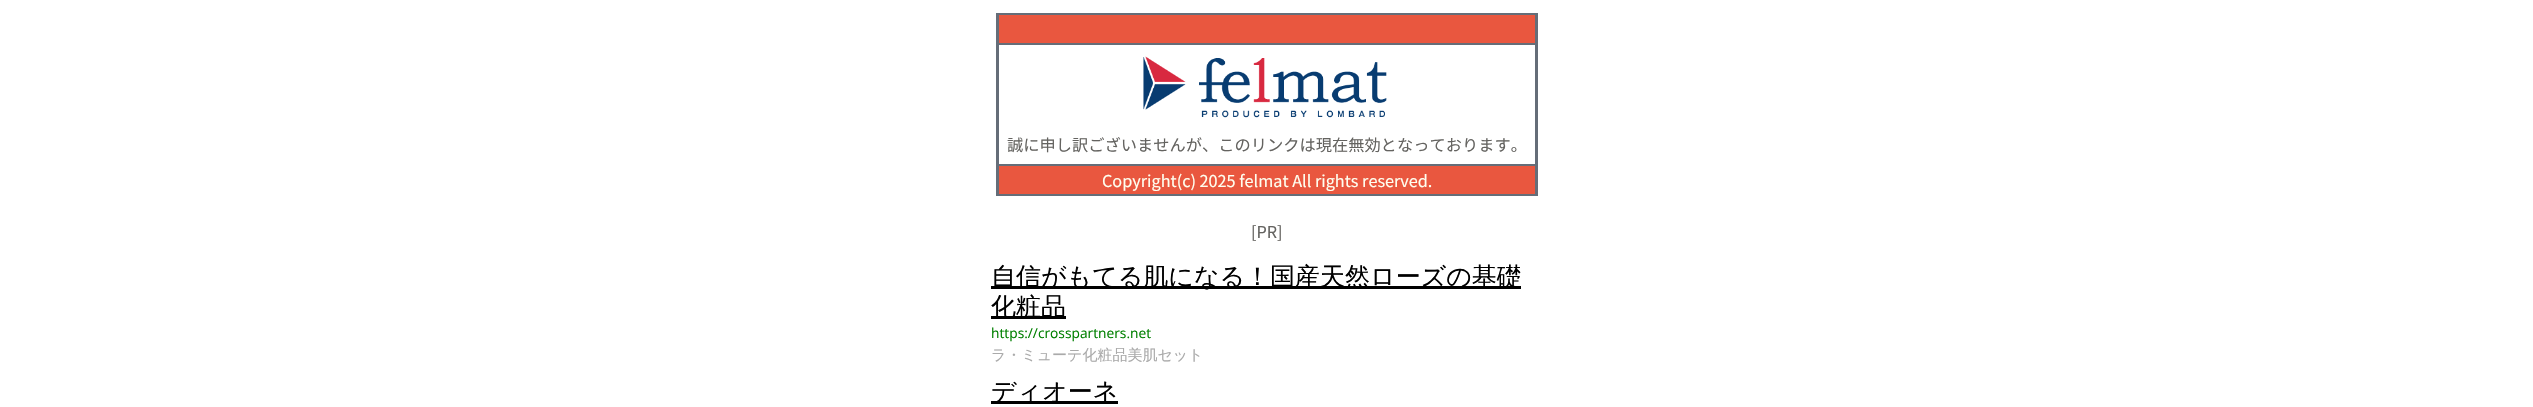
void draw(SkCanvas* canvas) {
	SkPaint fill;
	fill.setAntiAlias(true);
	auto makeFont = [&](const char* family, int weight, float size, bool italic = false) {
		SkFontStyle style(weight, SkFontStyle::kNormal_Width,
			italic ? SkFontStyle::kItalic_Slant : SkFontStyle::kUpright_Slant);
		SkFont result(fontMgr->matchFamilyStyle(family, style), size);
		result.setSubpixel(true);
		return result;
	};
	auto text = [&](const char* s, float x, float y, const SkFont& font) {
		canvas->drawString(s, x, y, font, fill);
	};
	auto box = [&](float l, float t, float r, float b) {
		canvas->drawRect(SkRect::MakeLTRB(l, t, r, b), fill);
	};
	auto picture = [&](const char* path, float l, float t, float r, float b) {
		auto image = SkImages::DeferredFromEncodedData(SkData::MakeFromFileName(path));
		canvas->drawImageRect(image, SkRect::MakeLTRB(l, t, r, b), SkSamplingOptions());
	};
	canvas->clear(0xFFFFFFFF);
	fill.setColor(0xFF656D78);
	box(996, 13, 1538, 196);
	fill.setColor(0xFFE9573F);
	box(999, 15, 1535, 43);
	fill.setColor(0xFFFFFFFF);
	box(999, 45, 1535, 164);
	picture("image0.png", 1143, 56, 1387, 118);
	fill.setColor(0xFFE9573F);
	box(999, 166, 1535, 194);
	fill.setColor(0xFF000000);
	box(991, 286, 1521, 289);
	box(991, 316, 1066, 319);
	box(991, 401, 1118, 404);
	auto font1 = makeFont("Noto Sans JP", 400, 16.25f);
	fill.setColor(0xFF646360);
	text("誠に申し訳ございませんが、このリンクは現在無効となっております。", 1007, 151, font1);
	fill.setColor(0xFFFFFFF0);
	text("Copyright(c) 2025 felmat All rights reserved.", 1102, 187, font1);
	fill.setColor(0xFF646360);
	text("[PR]", 1251, 238, font1);
	auto font2 = makeFont("WenQuanYi Zen Hei", 500, 25);
	fill.setColor(0xFF000000);
	text("自信がもてる肌になる！国産天然ローズの基礎", 991, 285, font2);
	text("化粧品", 991, 315, font2);
	auto font3 = makeFont("Open Sans", 400, 13.75f);
	fill.setColor(0xFF008000);
	text("https://crosspartners.net", 991, 338, font3);
	auto font4 = makeFont("WenQuanYi Zen Hei", 500, 15);
	fill.setColor(0xFFAAAAAA);
	text("ラ・ミューテ化粧品美肌セット", 991, 360, font4);
	fill.setColor(0xFF000000);
	text("ディオーネ", 991, 400, font2);
}
